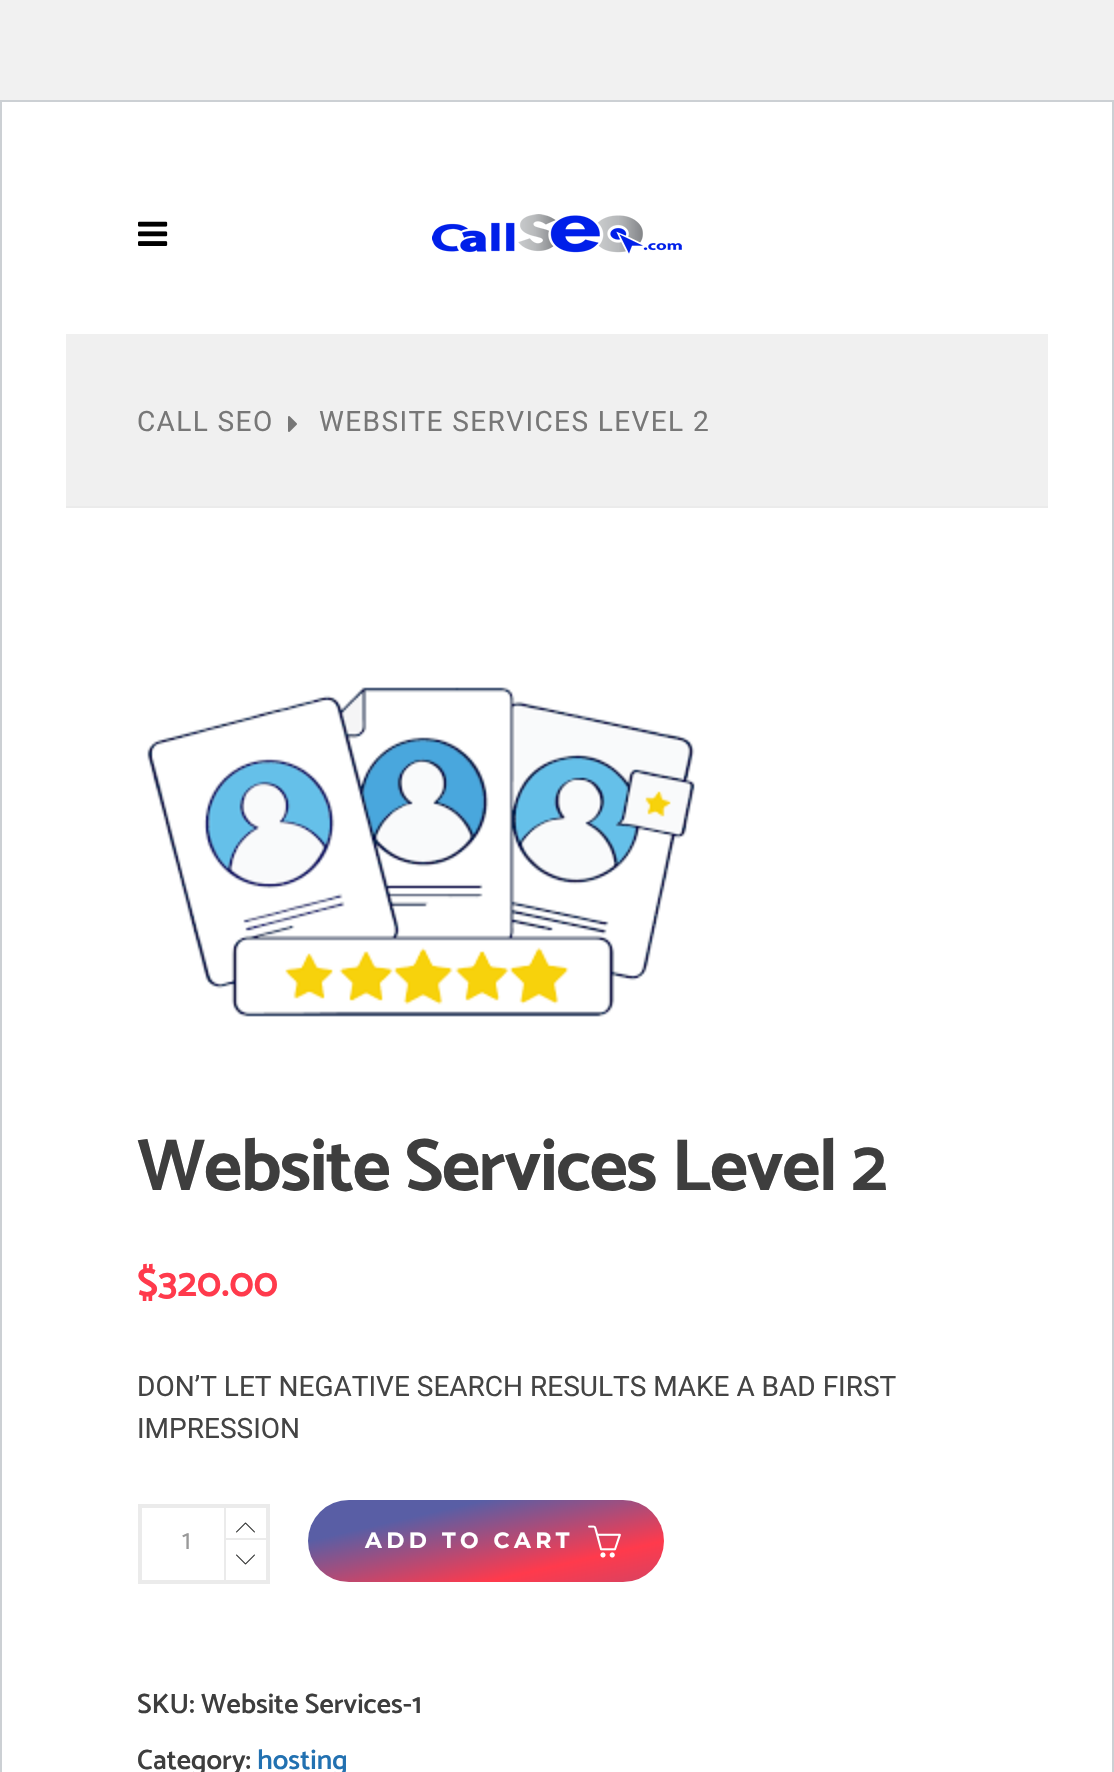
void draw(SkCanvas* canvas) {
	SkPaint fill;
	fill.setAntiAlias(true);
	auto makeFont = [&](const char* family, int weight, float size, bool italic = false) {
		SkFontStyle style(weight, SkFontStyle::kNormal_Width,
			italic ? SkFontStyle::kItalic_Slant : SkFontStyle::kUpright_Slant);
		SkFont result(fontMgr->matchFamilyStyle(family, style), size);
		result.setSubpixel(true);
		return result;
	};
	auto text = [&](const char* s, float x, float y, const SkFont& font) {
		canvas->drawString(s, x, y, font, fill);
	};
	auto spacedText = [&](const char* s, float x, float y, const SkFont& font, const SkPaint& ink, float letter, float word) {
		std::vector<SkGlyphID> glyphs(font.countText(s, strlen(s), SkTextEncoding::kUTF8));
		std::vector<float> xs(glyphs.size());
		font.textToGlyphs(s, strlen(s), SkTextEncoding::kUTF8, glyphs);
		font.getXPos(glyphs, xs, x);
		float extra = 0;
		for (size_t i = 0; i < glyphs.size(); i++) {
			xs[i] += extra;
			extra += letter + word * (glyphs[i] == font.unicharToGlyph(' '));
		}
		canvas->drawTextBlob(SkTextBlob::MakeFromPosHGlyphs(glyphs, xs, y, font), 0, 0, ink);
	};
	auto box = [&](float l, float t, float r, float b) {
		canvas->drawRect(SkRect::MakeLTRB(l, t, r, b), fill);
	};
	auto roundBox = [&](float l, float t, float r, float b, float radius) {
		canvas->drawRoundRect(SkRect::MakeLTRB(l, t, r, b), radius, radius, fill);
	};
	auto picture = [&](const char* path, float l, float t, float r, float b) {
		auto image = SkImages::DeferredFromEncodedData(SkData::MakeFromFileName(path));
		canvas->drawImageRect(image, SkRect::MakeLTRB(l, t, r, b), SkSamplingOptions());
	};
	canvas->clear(0xFFF1F1F1);
	fill.setColor(0xFFFFFFFF);
	canvas->drawRect(SkRect::MakeLTRB(1, 101, 1113, 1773), fill);
	fill.setStyle(SkPaint::kStroke_Style);
	fill.setStrokeWidth(2);
	fill.setColor(0xFFCCD0D4);
	canvas->drawRect(SkRect::MakeLTRB(1, 101, 1113, 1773), fill);
	picture("image0.png", 138, 221, 168, 246);
	picture("image1.png", 432, 214, 682, 254);
	fill.setStyle(SkPaint::kFill_Style);
	fill.setColor(0xFFF0F0F0);
	box(66, 334, 1048, 506);
	fill.setColor(0xFFEBEBEB);
	box(66, 506, 1048, 508);
	picture("image2.png", 288, 416, 297, 432);
	picture("image3.png", 147, 687, 695, 1017);
	box(138, 1504, 270, 1508);
	box(266, 1504, 270, 1538);
	box(224, 1504, 226, 1538);
	picture("image4.png", 236, 1522, 255, 1533);
	box(138, 1580, 232, 1584);
	box(138, 1504, 142, 1584);
	box(224, 1538, 270, 1540);
	box(266, 1538, 270, 1584);
	box(224, 1580, 270, 1584);
	box(224, 1538, 226, 1584);
	picture("image5.png", 236, 1554, 255, 1565);
	{
		const SkColor colors[] = {0xFF595EA5, 0xFFFF3A4C, 0xFF595EA5};
		const float stops[] = {0.25f, 0.5f, 1};
		const SkPoint ends[] = {{628, 1385}, {700, 1697}};
		fill.setShader(SkGradientShader::MakeLinear(ends, colors, stops, 3, SkTileMode::kClamp));
		fill.setAlpha(255);
	}
	roundBox(308, 1500, 664, 1582, 41);
	picture("image6.png", 588, 1525, 621, 1558);
	auto font1 = makeFont("Roboto", 400, 28);
	fill.setShader(nullptr);
	fill.setColor(0xFF777777);
	spacedText("CALL SEO", 137, 431, font1, fill, 1.4f, 0);
	spacedText("WEBSITE SERVICES LEVEL 2", 319, 431, font1, fill, 1.4f, 0);
	auto font2 = makeFont("Catamaran", 700, 74);
	fill.setColor(0xFF3E3E3E);
	spacedText("Website Services Level 2", 137, 1190, font2, fill, -1.5f, 0);
	auto font3 = makeFont("Catamaran", 700, 40);
	fill.setColor(0xFFFF3A4C);
	text("$320.00", 137, 1296, font3);
	fill.setColor(0xFF444444);
	text("DON’T LET NEGATIVE SEARCH RESULTS MAKE A BAD FIRST", 137, 1396, font1);
	text("IMPRESSION", 137, 1438, font1);
	auto font4 = makeFont("Catamaran", 400, 28);
	fill.setColor(0xFF999999);
	text("1", 182, 1549, font4);
	auto font5 = makeFont("Montserrat", 700, 22);
	fill.setColor(0xFFFFFFFF);
	spacedText("ADD TO CART", 365, 1548, font5, fill, 4.4f, 0);
	auto font6 = makeFont("Catamaran", 600, 28);
	fill.setColor(0xFF3E3E3E);
	text("SKU: Website Services-1", 137, 1713, font6);
	text("Category:", 137, 1769, font6);
	fill.setColor(0xFF2271B1);
	text("hosting", 257, 1769, font6);
}
